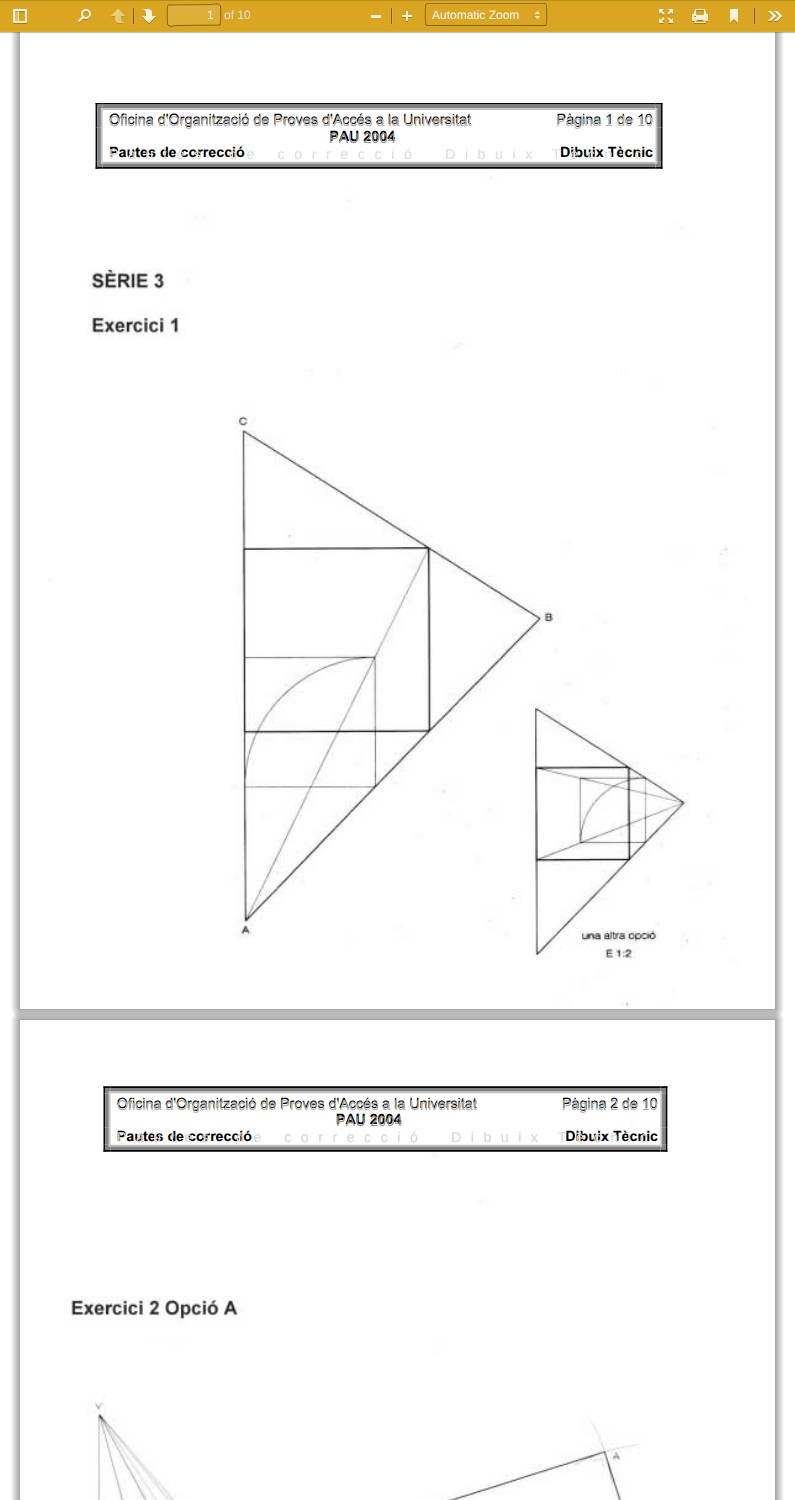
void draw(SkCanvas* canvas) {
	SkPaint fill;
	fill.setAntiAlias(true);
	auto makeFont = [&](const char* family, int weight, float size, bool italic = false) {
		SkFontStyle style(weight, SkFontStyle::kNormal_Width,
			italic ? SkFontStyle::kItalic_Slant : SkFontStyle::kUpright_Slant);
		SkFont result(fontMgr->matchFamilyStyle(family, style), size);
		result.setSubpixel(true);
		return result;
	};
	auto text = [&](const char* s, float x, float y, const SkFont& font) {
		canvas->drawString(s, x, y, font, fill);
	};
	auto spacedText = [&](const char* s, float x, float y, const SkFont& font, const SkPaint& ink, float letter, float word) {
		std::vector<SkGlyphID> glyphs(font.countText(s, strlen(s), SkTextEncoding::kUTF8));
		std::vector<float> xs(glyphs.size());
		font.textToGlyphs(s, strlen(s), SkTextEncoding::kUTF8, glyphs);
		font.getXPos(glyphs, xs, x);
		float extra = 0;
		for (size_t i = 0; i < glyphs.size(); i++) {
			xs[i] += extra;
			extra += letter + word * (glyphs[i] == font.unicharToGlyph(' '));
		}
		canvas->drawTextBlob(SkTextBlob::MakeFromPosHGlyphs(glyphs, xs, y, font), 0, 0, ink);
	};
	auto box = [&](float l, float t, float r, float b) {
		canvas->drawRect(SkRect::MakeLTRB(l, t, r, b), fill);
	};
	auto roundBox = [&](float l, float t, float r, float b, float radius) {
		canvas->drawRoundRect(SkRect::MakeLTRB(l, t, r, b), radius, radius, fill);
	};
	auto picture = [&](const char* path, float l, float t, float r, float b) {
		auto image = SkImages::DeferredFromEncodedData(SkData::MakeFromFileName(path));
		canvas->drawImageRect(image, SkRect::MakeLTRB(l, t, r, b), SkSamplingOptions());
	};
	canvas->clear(0xFFFFFFFF);
	picture("image10.png", 11, 32, 784, 1018);
	fill.setColor(0x1A000000);
	fill.setMaskFilter(SkMaskFilter::MakeBlur(kNormal_SkBlurStyle, 0.5f));
	canvas->drawRect(SkRect::MakeLTRB(0, 1, 795, 33), fill);
	fill.setMaskFilter(nullptr);
	fill.setColor(0x26000000);
	box(0, 32, 795, 33);
	fill.setColor(0xFFDAA520);
	box(0, 1, 795, 31);
	fill.setColor(0xFFDCAA2B);
	box(0, 31, 795, 32);
	fill.setColor(0xFFB98C1B);
	box(0, 0, 795, 1);
	picture("image0.png", 13, 9, 27, 24);
	picture("image1.png", 78, 9, 91, 23);
	picture("image2.png", 111, 9, 125, 24);
	fill.setStyle(SkPaint::kStroke_Style);
	fill.setStrokeWidth(1);
	fill.setColor(0xFFDDAC32);
	canvas->drawRect(SkRect::MakeLTRB(132.5f, 7.5f, 134.5f, 24.5f), fill);
	fill.setStyle(SkPaint::kFill_Style);
	fill.setColor(0xFF6D5310);
	box(133, 8, 134, 24);
	picture("image3.png", 142, 9, 156, 24);
	fill.setColor(0xFFDCAA2B);
	canvas->drawPath(SkPathBuilder().moveTo(167, 24).cubicTo(167, 29, 173, 27, 177, 27).lineTo(211, 27).cubicTo(215, 27, 221, 29, 221, 24).lineTo(220, 26).lineTo(168, 26).close().detach(), fill);
	fill.setColor(0xFFDDAD34);
	roundBox(168, 5, 220, 25, 1);
	{
		const SkColor colors[] = {0x0DFFFFFF, 0x00FFFFFF};
		const float stops[] = {0, 1};
		const SkPoint ends[] = {{194, 5}, {194, 25}};
		fill.setShader(SkGradientShader::MakeLinear(ends, colors, stops, 2, SkTileMode::kClamp));
		fill.setAlpha(255);
	}
	box(168, 5, 220, 16);
	fill.setShader(nullptr);
	fill.setColor(0x0D000000);
	canvas->drawPath(SkPathBuilder().moveTo(169, 6).lineTo(219, 6).cubicTo(220, 6, 220, 6, 220, 7).cubicTo(220, 3, 215, 5, 211, 5).lineTo(177, 5).cubicTo(173, 5, 168, 3, 168, 7).cubicTo(168, 6, 168, 6, 169, 6).close().detach(), fill);
	fill.setStyle(SkPaint::kStroke_Style);
	fill.setColor(0x52000000);
	canvas->drawPath(SkPathBuilder().moveTo(168, 5).lineTo(210.5f, 4.5f).cubicTo(214, 4.5f, 218, 2.5f, 220, 5).detach(), fill);
	fill.setColor(0xFF876614);
	canvas->drawPath(SkPathBuilder().moveTo(220, 5).cubicTo(221, 5.5f, 221, 24.5f, 220, 25).detach(), fill);
	fill.setColor(0x6B000000);
	canvas->drawPath(SkPathBuilder().moveTo(220, 25).lineTo(177.5f, 25.5f).cubicTo(174, 25.5f, 170, 27.5f, 168, 25).detach(), fill);
	fill.setColor(0xFF876614);
	canvas->drawPath(SkPathBuilder().moveTo(168, 25).cubicTo(167, 24.5f, 167, 5.5f, 168, 5).detach(), fill);
	fill.setStyle(SkPaint::kFill_Style);
	fill.setColor(0xFFF8EFD7);
	box(371, 15, 381, 18);
	fill.setStyle(SkPaint::kStroke_Style);
	fill.setColor(0xFFDDAC32);
	canvas->drawRect(SkRect::MakeLTRB(390.5f, 7.5f, 392.5f, 24.5f), fill);
	fill.setStyle(SkPaint::kFill_Style);
	fill.setColor(0xFF6D5310);
	box(391, 8, 392, 24);
	picture("image4.png", 402, 11, 412, 22);
	fill.setColor(0xFFDCAA2B);
	canvas->drawPath(SkPathBuilder().moveTo(425, 24).cubicTo(425, 25, 425, 26, 426, 27).lineTo(525, 27).cubicTo(531, 27, 547, 31, 547, 24).cubicTo(547, 25, 546, 26, 545, 26).lineTo(427, 26).cubicTo(426, 26, 425, 25, 425, 24).close().detach(), fill);
	picture("image5.png", 535, 11, 540, 19);
	canvas->drawPath(SkPathBuilder().moveTo(427, 5).lineTo(546, 5).lineTo(546, 6).cubicTo(546, 5, 546, 4, 545, 4).lineTo(427, 4).lineTo(426, 6).cubicTo(426, 5, 426, 5, 427, 5).close().detach(), fill);
	fill.setStyle(SkPaint::kStroke_Style);
	fill.setColor(0xFF947016);
	canvas->drawPath(SkPathBuilder().moveTo(426, 4).lineTo(427, 3.5f).lineTo(545, 3.5f).lineTo(546, 4).detach(), fill);
	fill.setColor(0xFF876614);
	canvas->drawPath(SkPathBuilder().moveTo(546, 4).cubicTo(547, 5, 547, 24, 546, 25).detach(), fill);
	fill.setColor(0xFF7E6013);
	canvas->drawPath(SkPathBuilder().moveTo(546, 25).lineTo(545, 25.5f).lineTo(427, 25.5f).lineTo(426, 25).detach(), fill);
	fill.setColor(0xFF876614);
	canvas->drawPath(SkPathBuilder().moveTo(426, 25).cubicTo(425, 24, 425, 5, 426, 4).detach(), fill);
	picture("image6.png", 659, 9, 673, 24);
	picture("image7.png", 692, 9, 708, 24);
	picture("image8.png", 730, 9, 738, 24);
	fill.setColor(0xFFDDAC32);
	canvas->drawRect(SkRect::MakeLTRB(753.5f, 7.5f, 755.5f, 24.5f), fill);
	fill.setStyle(SkPaint::kFill_Style);
	fill.setColor(0xFF6D5310);
	box(754, 8, 755, 24);
	picture("image9.png", 768, 11, 783, 22);
	picture("image11.png", 48, 103, 747, 1008);
	picture("image12.png", 11, 1011, 784, 1500);
	picture("image13.png", 67, 1086, 668, 1500);
	auto font1 = makeFont("Liberation Sans", 400, 12);
	fill.setColor(0xFFF2F2F2);
	text("1", 207, 19, font1);
	fill.setColor(0xFFDCDDDE);
	text("of 10", 224, 19, font1);
	fill.setColor(0xFFF2F2F2);
	text("Automatic Zoom", 432, 19, font1);
	auto font2 = makeFont("Liberation Sans", 400, 14.3f);
	fill.setColor(0xFFADACAF);
	spacedText("Oficina d'Organització de Proves d'Accés a la Universitat", 109, 126, font2, fill, 0.05f, 0);
	fill.setColor(0xFFB6B1AF);
	spacedText("Pàgina 1 de 10", 556, 126, font2, fill, 0.05f, 0);
	fill.setColor(0xFF909094);
	spacedText("PAU 2004", 329, 143, font2, fill, 0.25f, 0);
	fill.setColor(0xFFDCDDDE);
	spacedText("Pautes", 109, 159, font2, fill, 9.55f, 0);
	spacedText("de correcció", 229, 159, font2, fill, 9.55f, 0);
	spacedText("Dibuix", 445, 159, font2, fill, 9.55f, 0);
	spacedText("Tècnic", 552, 159, font2, fill, 9.55f, 0);
	auto font3 = makeFont("Liberation Sans", 400, 14.2f);
	fill.setColor(0xFFADACAF);
	spacedText("Oficina d'Organització de Proves d'Accés a la Universitat", 117, 1110, font3, fill, 0.05f, 0);
	text("Pàgina 2 de 10", 562, 1110, font3);
	fill.setColor(0xFF909094);
	spacedText("PAU 2004", 336, 1126, font3, fill, 0.25f, 0);
	fill.setColor(0xFFD3D5D6);
	spacedText("Pautes", 117, 1142, font3, fill, 9.5f, 0);
	spacedText("de correcció", 236, 1142, font3, fill, 9.5f, 0);
	spacedText("Dibuix", 451, 1142, font3, fill, 9.5f, 0);
	spacedText("Tècnic", 558, 1142, font3, fill, 9.5f, 0);
}
